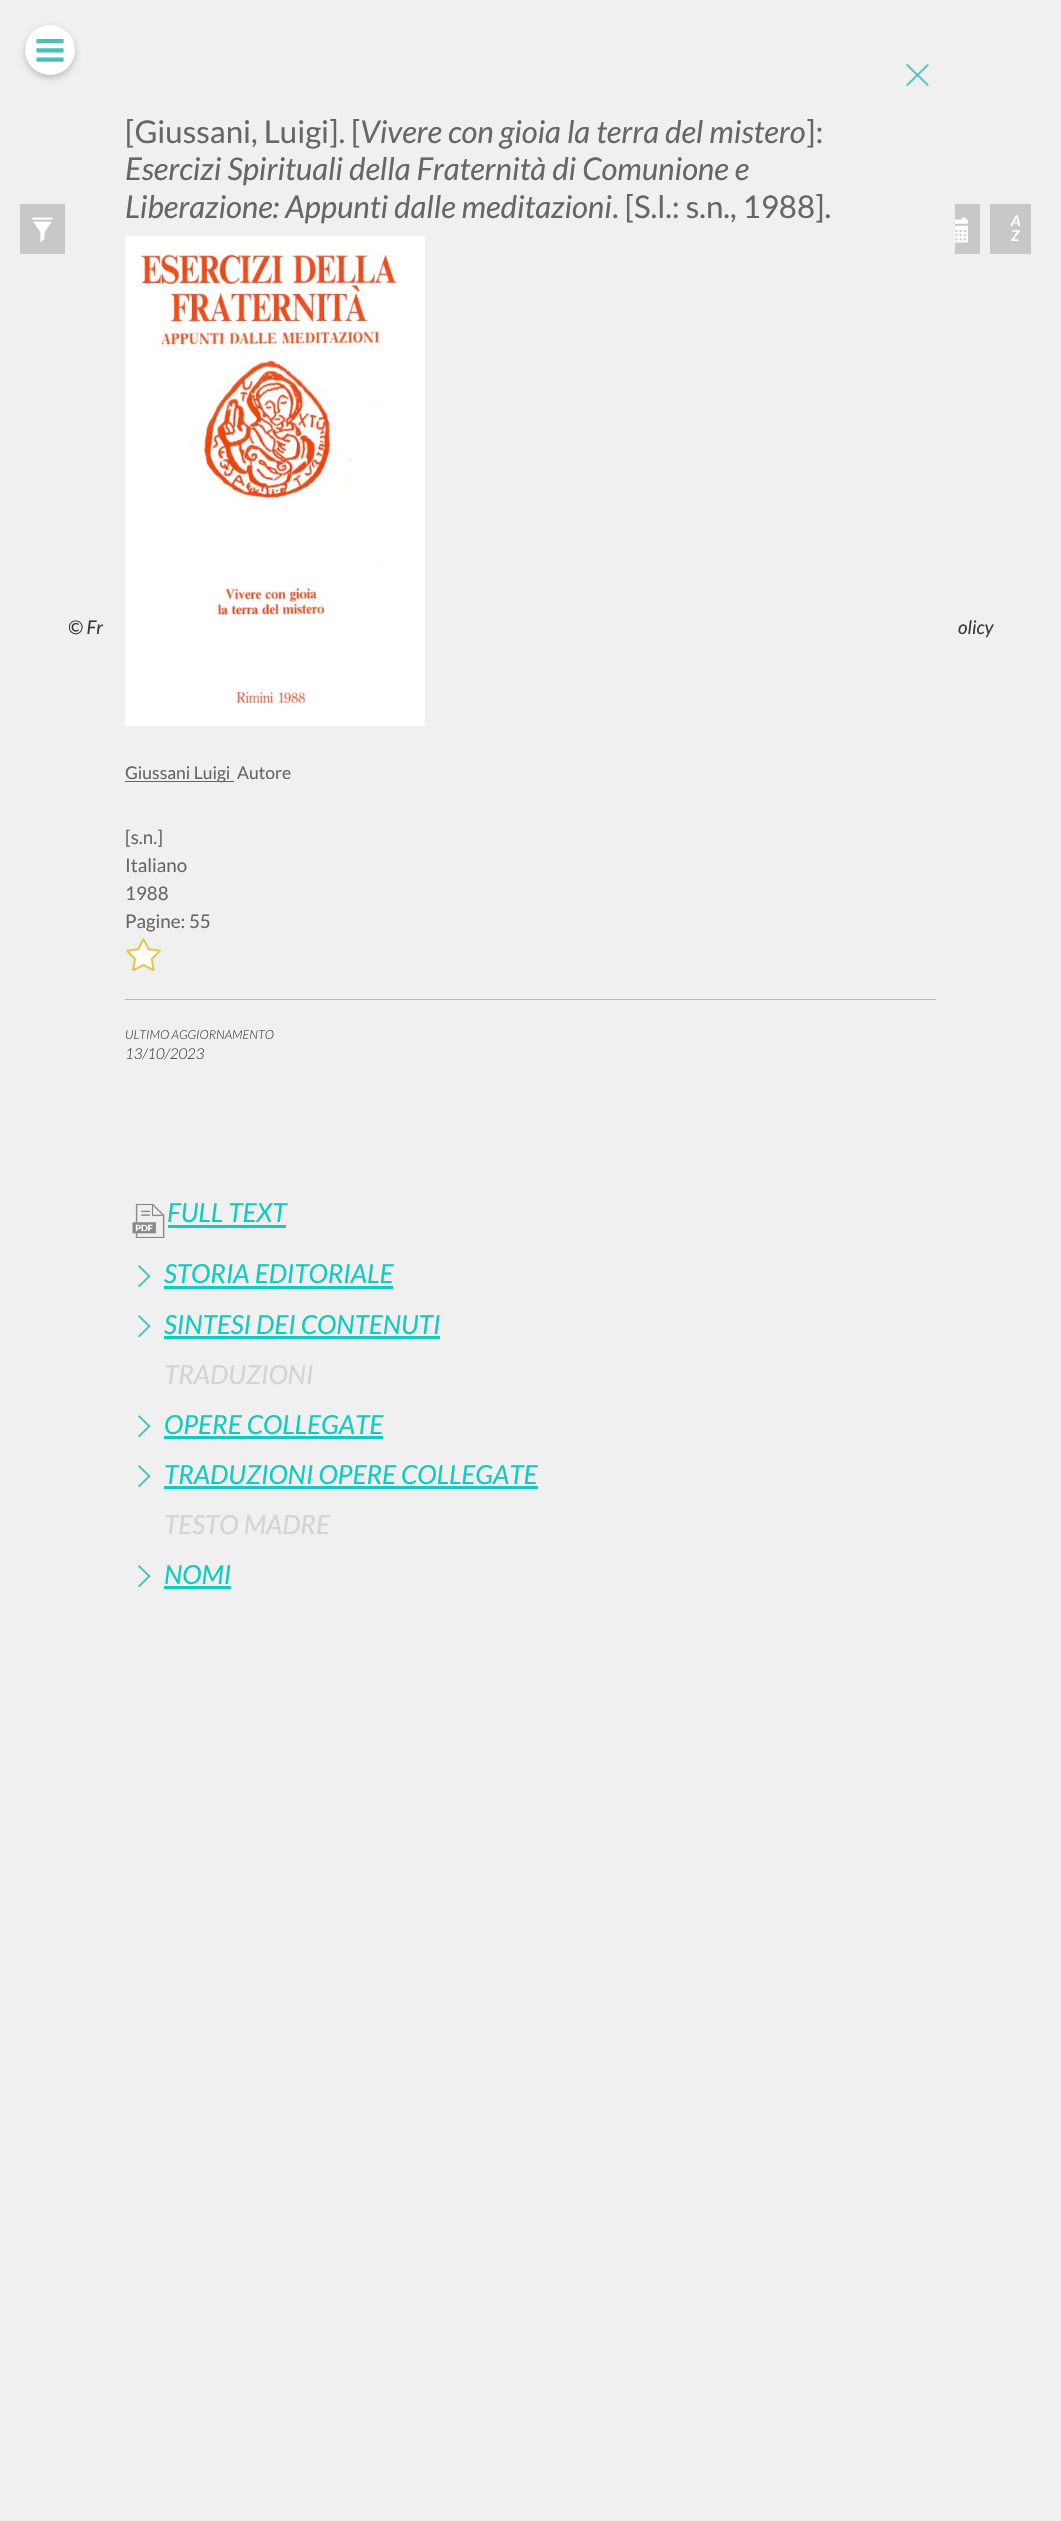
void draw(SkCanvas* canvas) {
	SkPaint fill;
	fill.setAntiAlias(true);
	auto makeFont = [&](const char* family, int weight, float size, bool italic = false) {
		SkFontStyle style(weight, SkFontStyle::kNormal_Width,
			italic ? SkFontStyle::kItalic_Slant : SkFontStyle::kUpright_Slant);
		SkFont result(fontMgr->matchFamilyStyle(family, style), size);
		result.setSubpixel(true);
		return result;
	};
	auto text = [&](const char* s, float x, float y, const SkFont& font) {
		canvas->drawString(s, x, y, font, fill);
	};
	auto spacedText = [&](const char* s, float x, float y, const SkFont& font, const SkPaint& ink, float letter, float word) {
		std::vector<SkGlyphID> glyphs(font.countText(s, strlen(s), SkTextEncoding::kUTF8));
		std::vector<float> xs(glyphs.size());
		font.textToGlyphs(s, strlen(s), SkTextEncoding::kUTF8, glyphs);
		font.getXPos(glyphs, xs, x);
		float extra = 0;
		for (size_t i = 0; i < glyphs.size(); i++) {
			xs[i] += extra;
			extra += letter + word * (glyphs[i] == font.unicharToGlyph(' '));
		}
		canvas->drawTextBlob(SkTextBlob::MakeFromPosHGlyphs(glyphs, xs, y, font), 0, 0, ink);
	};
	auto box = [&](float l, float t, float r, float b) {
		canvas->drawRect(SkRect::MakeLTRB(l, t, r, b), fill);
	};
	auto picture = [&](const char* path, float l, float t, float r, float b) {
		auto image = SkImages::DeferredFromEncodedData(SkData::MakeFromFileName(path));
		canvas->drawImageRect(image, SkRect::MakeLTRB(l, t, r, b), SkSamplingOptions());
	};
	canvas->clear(0xFFF0F0F0);
	fill.setColor(0x38000000);
	fill.setMaskFilter(SkMaskFilter::MakeBlur(kNormal_SkBlurStyle, 3));
	canvas->drawRoundRect(SkRect::MakeLTRB(25, 28, 75, 78), 25, 25, fill);
	fill.setMaskFilter(nullptr);
	fill.setColor(0xFFFFFFFF);
	canvas->drawCircle(50, 50, 25, fill);
	picture("image0.png", 36, 39, 64, 62);
	picture("image1.png", 905, 64, 930, 87);
	picture("image2.png", 125, 236, 425, 726);
	fill.setColor(0xFF666666);
	box(125, 781, 234, 782);
	picture("image3.png", 126, 938, 162, 972);
	fill.setColor(0xFFB7B7B7);
	box(125, 999, 936, 1000);
	picture("image4.png", 132, 1203, 165, 1238);
	fill.setColor(0xFF12CAC0);
	box(168, 1225, 286, 1228);
	picture("image5.png", 137, 1265, 151, 1288);
	box(164, 1286, 393, 1289);
	picture("image5.png", 137, 1315, 151, 1338);
	box(164, 1336, 440, 1339);
	picture("image5.png", 137, 1415, 151, 1438);
	box(164, 1436, 383, 1439);
	picture("image5.png", 137, 1465, 151, 1488);
	box(164, 1486, 538, 1489);
	picture("image5.png", 137, 1565, 151, 1588);
	box(164, 1586, 231, 1589);
	fill.setColor(0xFFC8C8C8);
	box(20, 204, 65, 254);
	picture("image6.png", 32, 217, 53, 243);
	box(955, 204, 980, 254);
	picture("image7.png", 955, 217, 968, 243);
	box(990, 204, 1031, 254);
	auto font1 = makeFont("Lato", 400, 31.25f);
	fill.setColor(0xFF666666);
	text("[Giussani, Luigi]. [", 125, 143, font1);
	auto font2 = makeFont("Lato", 400, 31.25f, true);
	text("Vivere con gioia la terra del mistero", 360, 143, font2);
	text("]:", 806, 143, font1);
	text("Esercizi Spirituali della Fraternità di Comunione e", 125, 180, font2);
	text("Liberazione: Appunti dalle meditazioni", 125, 218, font2);
	text(". [S.l.: s.n., 1988].", 612, 218, font1);
	auto font3 = makeFont("Lato", 400, 17.5f);
	text("Giussani Luigi", 125, 779, font3);
	text("Autore", 237, 779, font3);
	auto font4 = makeFont("Lato", 400, 18.75f);
	text("[s.n.]", 125, 844, font4);
	text("Italiano", 125, 872, font4);
	text("1988", 125, 900, font4);
	text("Pagine: 55", 125, 928, font4);
	auto font5 = makeFont("Lato", 300, 12.5f, true);
	fill.setColor(0xFF373737);
	text("ULTIMO AGGIORNAMENTO", 125, 1039, font5);
	auto font6 = makeFont("Lato", 300, 15, true);
	text("13/10/2023", 125, 1059, font6);
	auto font7 = makeFont("Lato", 400, 26.25f, true);
	fill.setColor(0xFF12CAC0);
	text("FULL TEXT", 167, 1222, font7);
	text("STORIA EDITORIALE", 164, 1283, font7);
	text("SINTESI DEI CONTENUTI", 164, 1334, font7);
	fill.setColor(0xFFD3D3D3);
	text("TRADUZIONI", 164, 1384, font7);
	fill.setColor(0xFF12CAC0);
	text("OPERE COLLEGATE", 164, 1434, font7);
	text("TRADUZIONI OPERE COLLEGATE", 164, 1484, font7);
	fill.setColor(0xFFD3D3D3);
	text("TESTO MADRE", 164, 1534, font7);
	fill.setColor(0xFF12CAC0);
	text("NOMI", 164, 1584, font7);
	auto font8 = makeFont("Lato", 700, 15, true);
	fill.setColor(0xFFFFFFFF);
	spacedText("A", 1011, 226, font8, fill, 1, 0);
	spacedText("Z", 1011, 241, font8, fill, 1, 0);
	auto font9 = makeFont("Lato", 400, 18.75f, true);
	fill.setColor(0xFF373737);
	text("© Fr", 68, 634, font9);
	text("olicy", 958, 634, font9);
}
